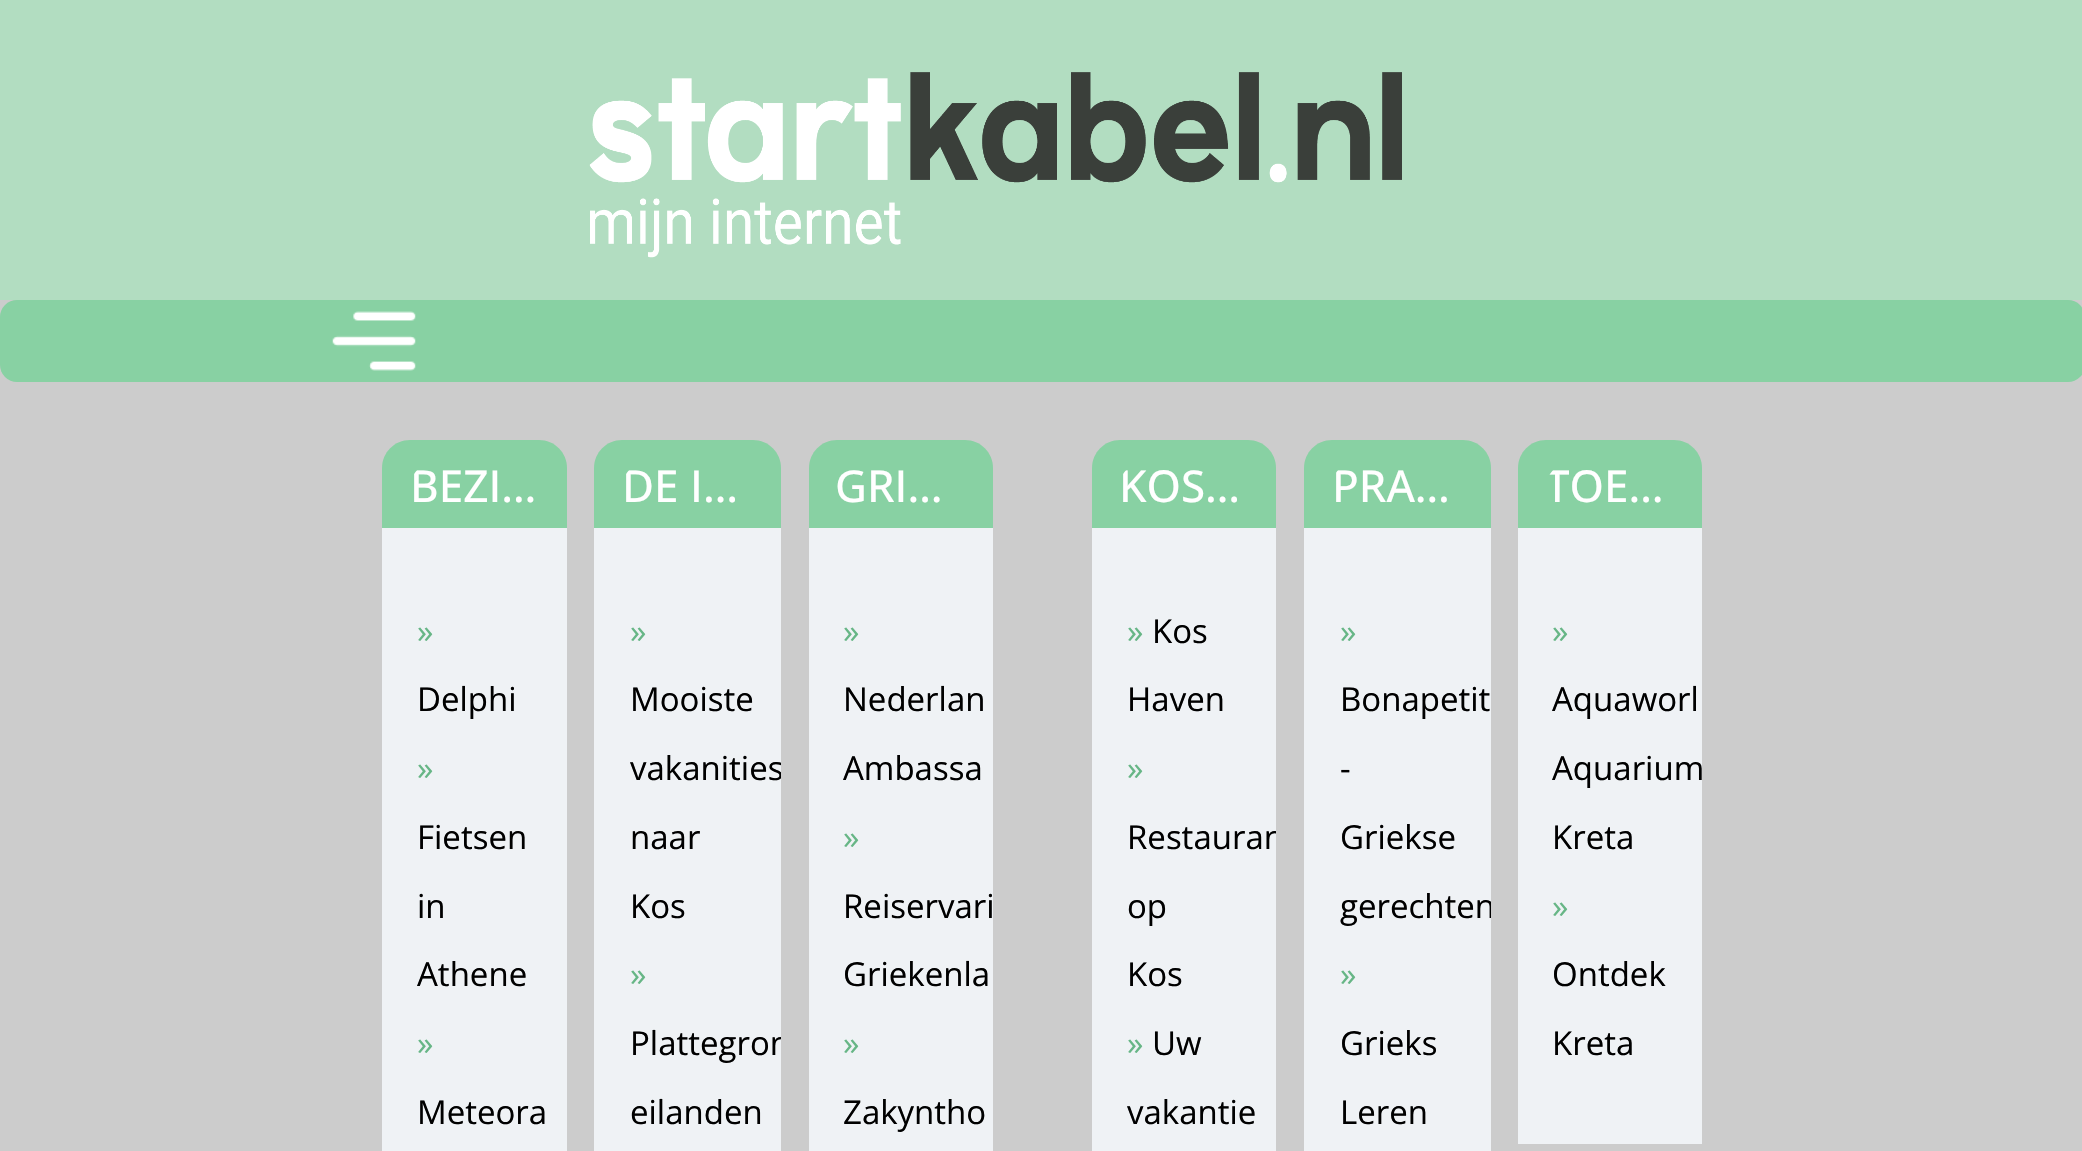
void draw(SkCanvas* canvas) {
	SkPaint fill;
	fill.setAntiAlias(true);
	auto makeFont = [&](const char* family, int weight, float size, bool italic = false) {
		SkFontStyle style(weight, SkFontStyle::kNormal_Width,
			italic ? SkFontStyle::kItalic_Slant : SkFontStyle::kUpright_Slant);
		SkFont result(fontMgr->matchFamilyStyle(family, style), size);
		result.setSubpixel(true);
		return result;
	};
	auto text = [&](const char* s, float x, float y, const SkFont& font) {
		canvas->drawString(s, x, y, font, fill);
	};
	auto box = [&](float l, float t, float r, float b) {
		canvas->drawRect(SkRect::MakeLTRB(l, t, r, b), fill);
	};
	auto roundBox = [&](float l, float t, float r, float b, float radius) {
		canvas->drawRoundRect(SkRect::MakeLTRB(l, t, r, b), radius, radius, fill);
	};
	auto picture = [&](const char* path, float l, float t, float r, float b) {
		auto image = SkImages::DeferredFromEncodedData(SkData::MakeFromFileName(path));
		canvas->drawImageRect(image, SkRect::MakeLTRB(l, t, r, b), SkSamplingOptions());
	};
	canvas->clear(0xFFCCCCCC);
	fill.setColor(0xFFB2DDC1);
	box(0, 0, 2082, 300);
	picture("image0.png", 589, 72, 1402, 258);
	fill.setColor(0xFF88D1A3);
	roundBox(0, 300, 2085, 382, 17);
	picture("image1.png", 332, 311, 416, 371);
	canvas->drawPath(SkPathBuilder().moveTo(410, 440).lineTo(539, 440).cubicTo(554.5f, 440, 567, 452.5f, 567, 468).lineTo(567, 528).lineTo(382, 528).lineTo(382, 468).cubicTo(382, 452.5f, 394.5f, 440, 410, 440).close().detach(), fill);
	fill.setColor(0xFFEFF2F5);
	box(382, 528, 567, 1151);
	fill.setColor(0xFF88D1A3);
	canvas->drawPath(SkPathBuilder().moveTo(622, 440).lineTo(753, 440).cubicTo(768.5f, 440, 781, 452.5f, 781, 468).lineTo(781, 528).lineTo(594, 528).lineTo(594, 468).cubicTo(594, 452.5f, 606.5f, 440, 622, 440).close().detach(), fill);
	fill.setColor(0xFFEFF2F5);
	box(594, 528, 781, 1151);
	fill.setColor(0xFF88D1A3);
	canvas->drawPath(SkPathBuilder().moveTo(837, 440).lineTo(965, 440).cubicTo(980.5f, 440, 993, 452.5f, 993, 468).lineTo(993, 528).lineTo(809, 528).lineTo(809, 468).cubicTo(809, 452.5f, 821.5f, 440, 837, 440).close().detach(), fill);
	fill.setColor(0xFFEFF2F5);
	box(809, 528, 993, 1151);
	fill.setColor(0xFF88D1A3);
	canvas->drawPath(SkPathBuilder().moveTo(1120, 440).lineTo(1248, 440).cubicTo(1263.5f, 440, 1276, 452.5f, 1276, 468).lineTo(1276, 528).lineTo(1092, 528).lineTo(1092, 468).cubicTo(1092, 452.5f, 1104.5f, 440, 1120, 440).close().detach(), fill);
	fill.setColor(0xFFEFF2F5);
	box(1092, 528, 1276, 1151);
	fill.setColor(0xFF88D1A3);
	canvas->drawPath(SkPathBuilder().moveTo(1332, 440).lineTo(1463, 440).cubicTo(1478.5f, 440, 1491, 452.5f, 1491, 468).lineTo(1491, 528).lineTo(1304, 528).lineTo(1304, 468).cubicTo(1304, 452.5f, 1316.5f, 440, 1332, 440).close().detach(), fill);
	fill.setColor(0xFFEFF2F5);
	box(1304, 528, 1491, 1151);
	fill.setColor(0xFF88D1A3);
	canvas->drawPath(SkPathBuilder().moveTo(1546, 440).lineTo(1674, 440).cubicTo(1689.5f, 440, 1702, 452.5f, 1702, 468).lineTo(1702, 528).lineTo(1518, 528).lineTo(1518, 468).cubicTo(1518, 452.5f, 1530.5f, 440, 1546, 440).close().detach(), fill);
	fill.setColor(0xFFEFF2F5);
	box(1518, 528, 1702, 1144);
	canvas->save();
	canvas->clipPath(SkPathBuilder().moveTo(436, 462).lineTo(513, 462).cubicTo(527.5f, 462, 539, 473.5f, 539, 488).cubicTo(539, 502.5f, 527.5f, 514, 513, 514).lineTo(436, 514).cubicTo(421.5f, 514, 410, 502.5f, 410, 488).cubicTo(410, 473.5f, 421.5f, 462, 436, 462).close().detach(), true);
	auto font1 = makeFont("Open Sans", 500, 44);
	fill.setColor(0xFFFFFFFF);
	text("BEZI…", 410, 502, font1);
	canvas->restore();
	auto font2 = makeFont("Open Sans", 400, 33);
	fill.setColor(0xFF67B686);
	text("»", 417, 643, font2);
	fill.setColor(0xFF000000);
	text("Delphi", 417, 711, font2);
	fill.setColor(0xFF67B686);
	text("»", 417, 780, font2);
	fill.setColor(0xFF000000);
	text("Fietsen", 417, 849, font2);
	text("in", 417, 918, font2);
	text("Athene", 417, 986, font2);
	fill.setColor(0xFF67B686);
	text("»", 417, 1055, font2);
	fill.setColor(0xFF000000);
	text("Meteora", 417, 1124, font2);
	canvas->save();
	canvas->clipPath(SkPathBuilder().moveTo(648, 462).lineTo(728, 462).cubicTo(742.5f, 462, 754, 473.5f, 754, 488).cubicTo(754, 502.5f, 742.5f, 514, 728, 514).lineTo(648, 514).cubicTo(633.5f, 514, 622, 502.5f, 622, 488).cubicTo(622, 473.5f, 633.5f, 462, 648, 462).close().detach(), true);
	fill.setColor(0xFFFFFFFF);
	text("DE I…", 622, 502, font1);
	canvas->restore();
	fill.setColor(0xFF67B686);
	text("»", 630, 643, font2);
	fill.setColor(0xFF000000);
	text("Mooiste", 630, 711, font2);
	canvas->save();
	canvas->clipRect(SkRect::MakeLTRB(594, 528, 781, 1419));
	text("vakanities", 630, 780, font2);
	canvas->restore();
	text("naar", 630, 849, font2);
	text("Kos", 630, 918, font2);
	fill.setColor(0xFF67B686);
	text("»", 630, 986, font2);
	canvas->save();
	canvas->clipRect(SkRect::MakeLTRB(594, 528, 781, 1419));
	fill.setColor(0xFF000000);
	text("Plattegron", 630, 1055, font2);
	canvas->restore();
	text("eilanden", 630, 1124, font2);
	fill.setColor(0xFFFFFFFF);
	text("GRI…", 835, 502, font1);
	fill.setColor(0xFF67B686);
	text("»", 843, 643, font2);
	fill.setColor(0xFF000000);
	text("Nederlan", 843, 711, font2);
	text("Ambassa", 843, 780, font2);
	fill.setColor(0xFF67B686);
	text("»", 843, 849, font2);
	fill.setColor(0xFF000000);
	text("Reiservari", 843, 918, font2);
	text("Griekenla", 843, 986, font2);
	fill.setColor(0xFF67B686);
	text("»", 843, 1055, font2);
	fill.setColor(0xFF000000);
	text("Zakyntho", 843, 1124, font2);
	canvas->save();
	canvas->clipPath(SkPathBuilder().moveTo(1145, 462).lineTo(1223, 462).cubicTo(1237.5f, 462, 1249, 473.5f, 1249, 488).cubicTo(1249, 502.5f, 1237.5f, 514, 1223, 514).lineTo(1145, 514).cubicTo(1130.5f, 514, 1119, 502.5f, 1119, 488).cubicTo(1119, 473.5f, 1130.5f, 462, 1145, 462).close().detach(), true);
	fill.setColor(0xFFFFFFFF);
	text("KOS…", 1119, 502, font1);
	canvas->restore();
	fill.setColor(0xFF67B686);
	text("»", 1127, 643, font2);
	fill.setColor(0xFF000000);
	text("Kos", 1152, 643, font2);
	text("Haven", 1127, 711, font2);
	fill.setColor(0xFF67B686);
	text("»", 1127, 780, font2);
	canvas->save();
	canvas->clipRect(SkRect::MakeLTRB(1092, 528, 1276, 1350));
	fill.setColor(0xFF000000);
	text("Restauran", 1127, 849, font2);
	canvas->restore();
	text("op", 1127, 918, font2);
	text("Kos", 1127, 986, font2);
	fill.setColor(0xFF67B686);
	text("»", 1127, 1055, font2);
	fill.setColor(0xFF000000);
	text("Uw", 1152, 1055, font2);
	text("vakantie", 1127, 1124, font2);
	canvas->save();
	canvas->clipPath(SkPathBuilder().moveTo(1357, 462).lineTo(1437, 462).cubicTo(1451.5f, 462, 1463, 473.5f, 1463, 488).cubicTo(1463, 502.5f, 1451.5f, 514, 1437, 514).lineTo(1357, 514).cubicTo(1342.5f, 514, 1331, 502.5f, 1331, 488).cubicTo(1331, 473.5f, 1342.5f, 462, 1357, 462).close().detach(), true);
	fill.setColor(0xFFFFFFFF);
	text("PRA…", 1332, 502, font1);
	canvas->restore();
	fill.setColor(0xFF67B686);
	text("»", 1340, 643, font2);
	fill.setColor(0xFF000000);
	text("Bonapetit", 1340, 711, font2);
	text("-", 1340, 780, font2);
	text("Griekse", 1340, 849, font2);
	canvas->save();
	canvas->clipRect(SkRect::MakeLTRB(1304, 528, 1491, 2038));
	text("gerechten", 1340, 918, font2);
	canvas->restore();
	fill.setColor(0xFF67B686);
	text("»", 1340, 986, font2);
	fill.setColor(0xFF000000);
	text("Grieks", 1340, 1055, font2);
	text("Leren", 1340, 1124, font2);
	canvas->save();
	canvas->clipPath(SkPathBuilder().moveTo(1572, 462).lineTo(1649, 462).cubicTo(1663.5f, 462, 1675, 473.5f, 1675, 488).cubicTo(1675, 502.5f, 1663.5f, 514, 1649, 514).lineTo(1572, 514).cubicTo(1557.5f, 514, 1546, 502.5f, 1546, 488).cubicTo(1546, 473.5f, 1557.5f, 462, 1572, 462).close().detach(), true);
	fill.setColor(0xFFFFFFFF);
	text("TOE…", 1545, 502, font1);
	canvas->restore();
	fill.setColor(0xFF67B686);
	text("»", 1552, 643, font2);
	fill.setColor(0xFF000000);
	text("Aquaworl", 1552, 711, font2);
	text("Aquarium", 1552, 780, font2);
	text("Kreta", 1552, 849, font2);
	fill.setColor(0xFF67B686);
	text("»", 1552, 918, font2);
	fill.setColor(0xFF000000);
	text("Ontdek", 1552, 986, font2);
	text("Kreta", 1552, 1055, font2);
}
